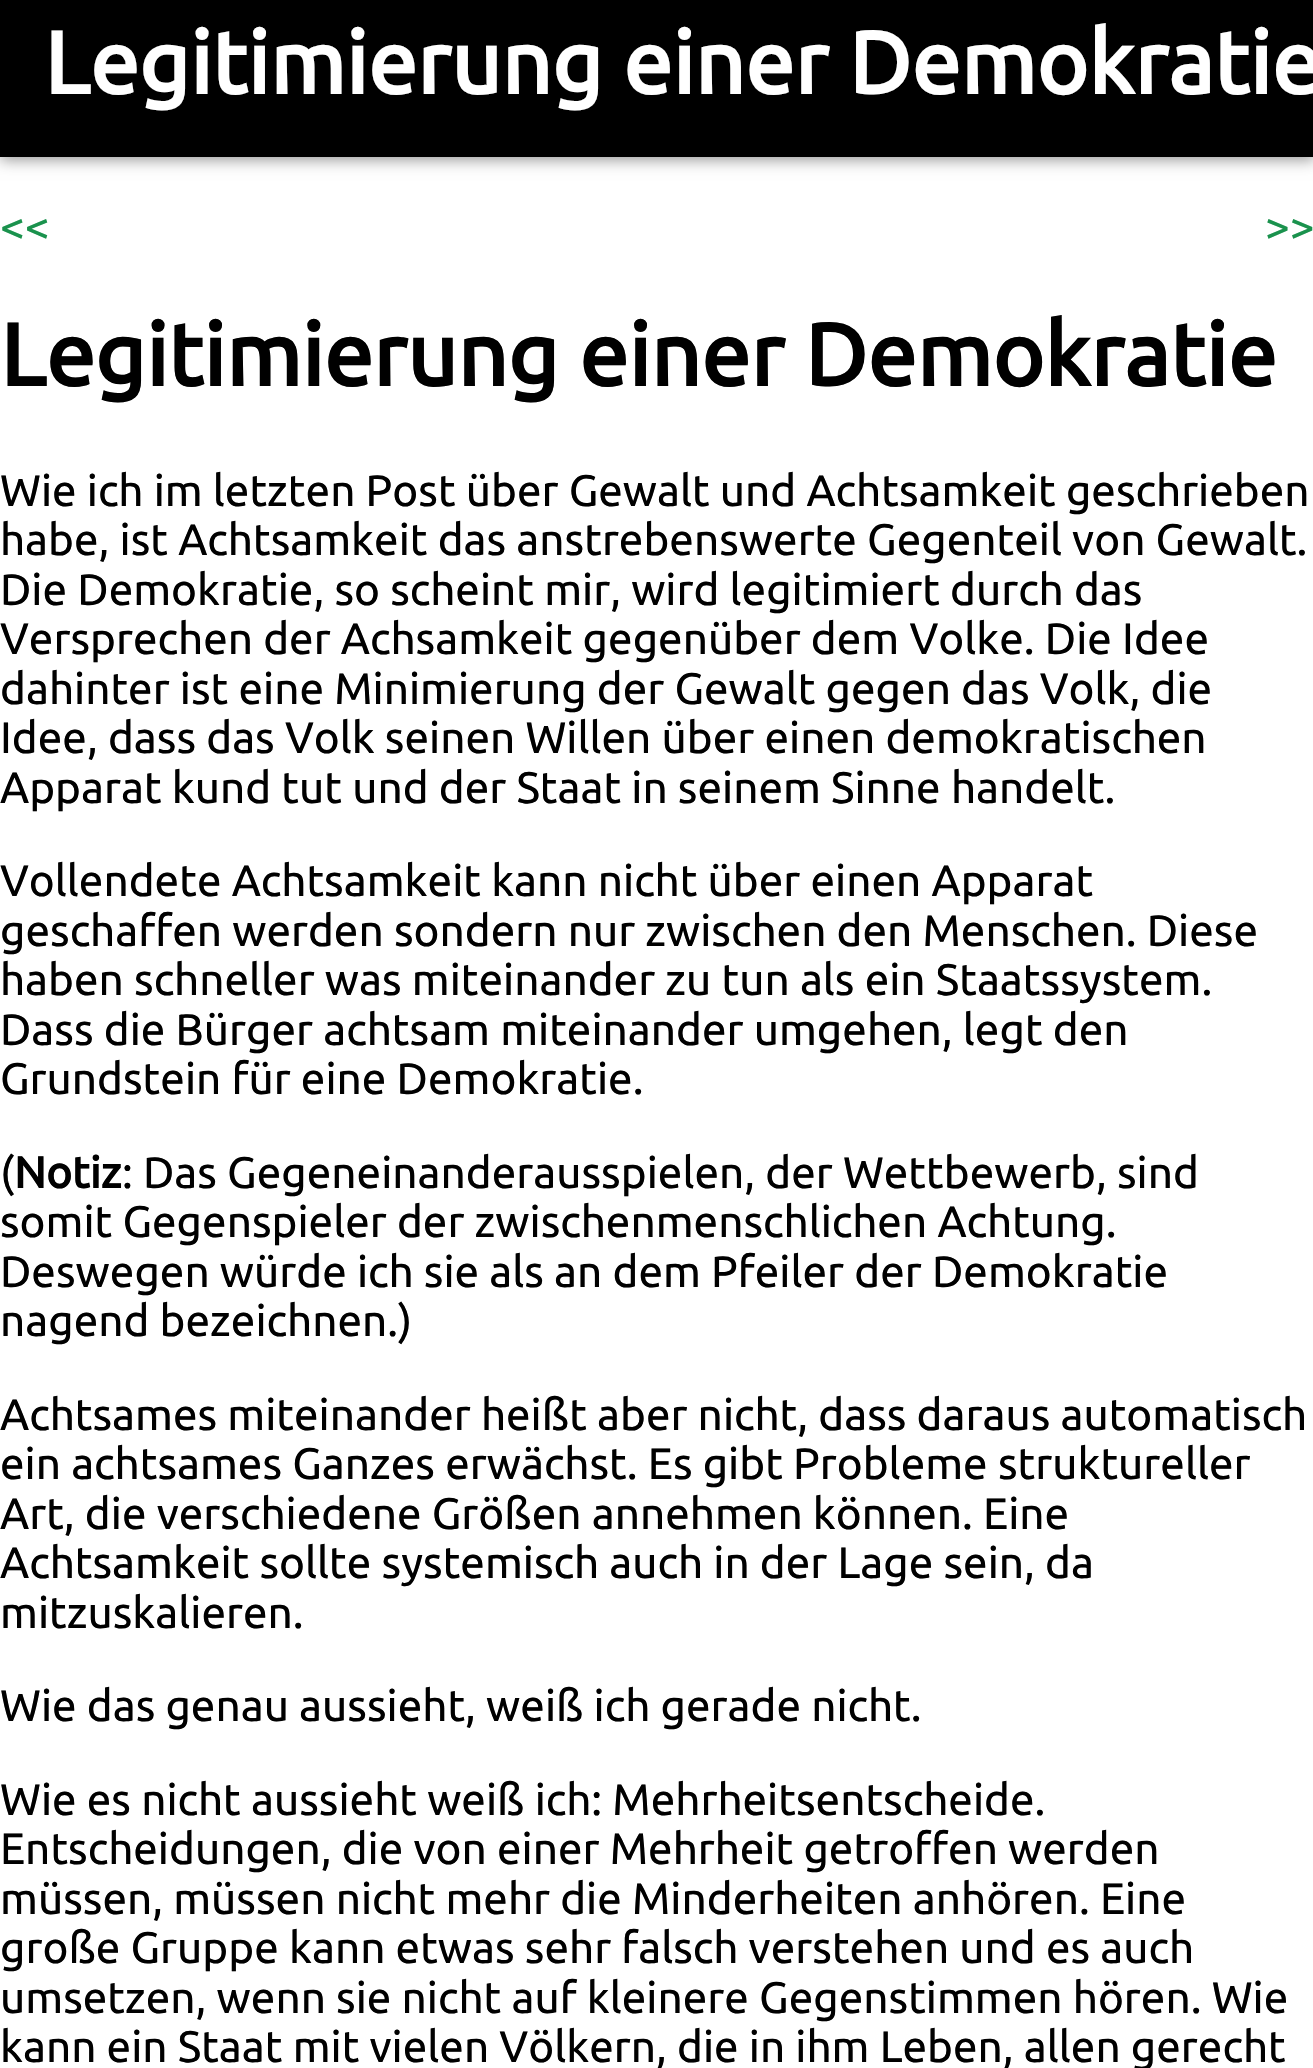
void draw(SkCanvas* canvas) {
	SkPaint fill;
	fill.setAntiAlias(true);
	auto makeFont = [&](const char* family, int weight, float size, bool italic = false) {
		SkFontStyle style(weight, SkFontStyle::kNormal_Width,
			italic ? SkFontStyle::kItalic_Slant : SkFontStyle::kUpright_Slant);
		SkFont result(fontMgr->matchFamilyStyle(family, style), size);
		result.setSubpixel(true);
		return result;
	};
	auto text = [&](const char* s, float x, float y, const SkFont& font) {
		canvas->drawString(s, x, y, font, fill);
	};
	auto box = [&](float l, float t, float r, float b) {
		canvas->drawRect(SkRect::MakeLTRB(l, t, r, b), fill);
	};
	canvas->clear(0xFFFFFFFF);
	fill.setColor(0xFF989898);
	fill.setMaskFilter(SkMaskFilter::MakeBlur(kNormal_SkBlurStyle, 7));
	canvas->drawRect(SkRect::MakeLTRB(0, -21, 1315, 160), fill);
	fill.setMaskFilter(nullptr);
	fill.setColor(0xFF000000);
	box(0, 0, 1313, 157);
	auto font1 = makeFont("Ubuntu", 700, 88);
	fill.setColor(0xFFFFFFFF);
	text("Legitimierung einer Demokratie", 44, 94, font1);
	auto font2 = makeFont("Ubuntu", 400, 44);
	fill.setColor(0xFF1A924D);
	text("<<", 0, 242, font2);
	text(">>", 1265, 242, font2);
	fill.setColor(0xFF000000);
	text("Legitimierung einer Demokratie", 0, 386, font1);
	text("Wie ich im letzten Post über Gewalt und Achtsamkeit geschrieben", 0, 506, font2);
	text("habe, ist Achtsamkeit das anstrebenswerte Gegenteil von Gewalt.", 0, 555, font2);
	text("Die Demokratie, so scheint mir, wird legitimiert durch das", 0, 605, font2);
	text("Versprechen der Achsamkeit gegenüber dem Volke. Die Idee", 0, 654, font2);
	text("dahinter ist eine Minimierung der Gewalt gegen das Volk, die", 0, 704, font2);
	text("Idee, dass das Volk seinen Willen über einen demokratischen", 0, 753, font2);
	text("Apparat kund tut und der Staat in seinem Sinne handelt.", 0, 803, font2);
	text("Vollendete Achtsamkeit kann nicht über einen Apparat", 0, 896, font2);
	text("geschaffen werden sondern nur zwischen den Menschen. Diese", 0, 946, font2);
	text("haben schneller was miteinander zu tun als ein Staatssystem.", 0, 995, font2);
	text("Dass die Bürger achtsam miteinander umgehen, legt den", 0, 1045, font2);
	text("Grundstein für eine Demokratie.", 0, 1094, font2);
	text("(", 0, 1188, font2);
	auto font3 = makeFont("Ubuntu", 700, 44);
	text("Notiz", 14, 1188, font3);
	text(": Das Gegeneinanderausspielen, der Wettbewerb, sind", 122, 1188, font2);
	text("somit Gegenspieler der zwischenmenschlichen Achtung.", 0, 1237, font2);
	text("Deswegen würde ich sie als an dem Pfeiler der Demokratie", 0, 1287, font2);
	text("nagend bezeichnen.)", 0, 1336, font2);
	text("Achtsames miteinander heißt aber nicht, dass daraus automatisch", 0, 1430, font2);
	text("ein achtsames Ganzes erwächst. Es gibt Probleme struktureller", 0, 1479, font2);
	text("Art, die verschiedene Größen annehmen können. Eine", 0, 1529, font2);
	text("Achtsamkeit sollte systemisch auch in der Lage sein, da", 0, 1578, font2);
	text("mitzuskalieren.", 0, 1628, font2);
	text("Wie das genau aussieht, weiß ich gerade nicht.", 0, 1721, font2);
	text("Wie es nicht aussieht weiß ich: Mehrheitsentscheide.", 0, 1815, font2);
	text("Entscheidungen, die von einer Mehrheit getroffen werden", 0, 1864, font2);
	text("müssen, müssen nicht mehr die Minderheiten anhören. Eine", 0, 1914, font2);
	text("große Gruppe kann etwas sehr falsch verstehen und es auch", 0, 1963, font2);
	text("umsetzen, wenn sie nicht auf kleinere Gegenstimmen hören. Wie", 0, 2013, font2);
	text("kann ein Staat mit vielen Völkern, die in ihm Leben, allen gerecht", 0, 2062, font2);
}
